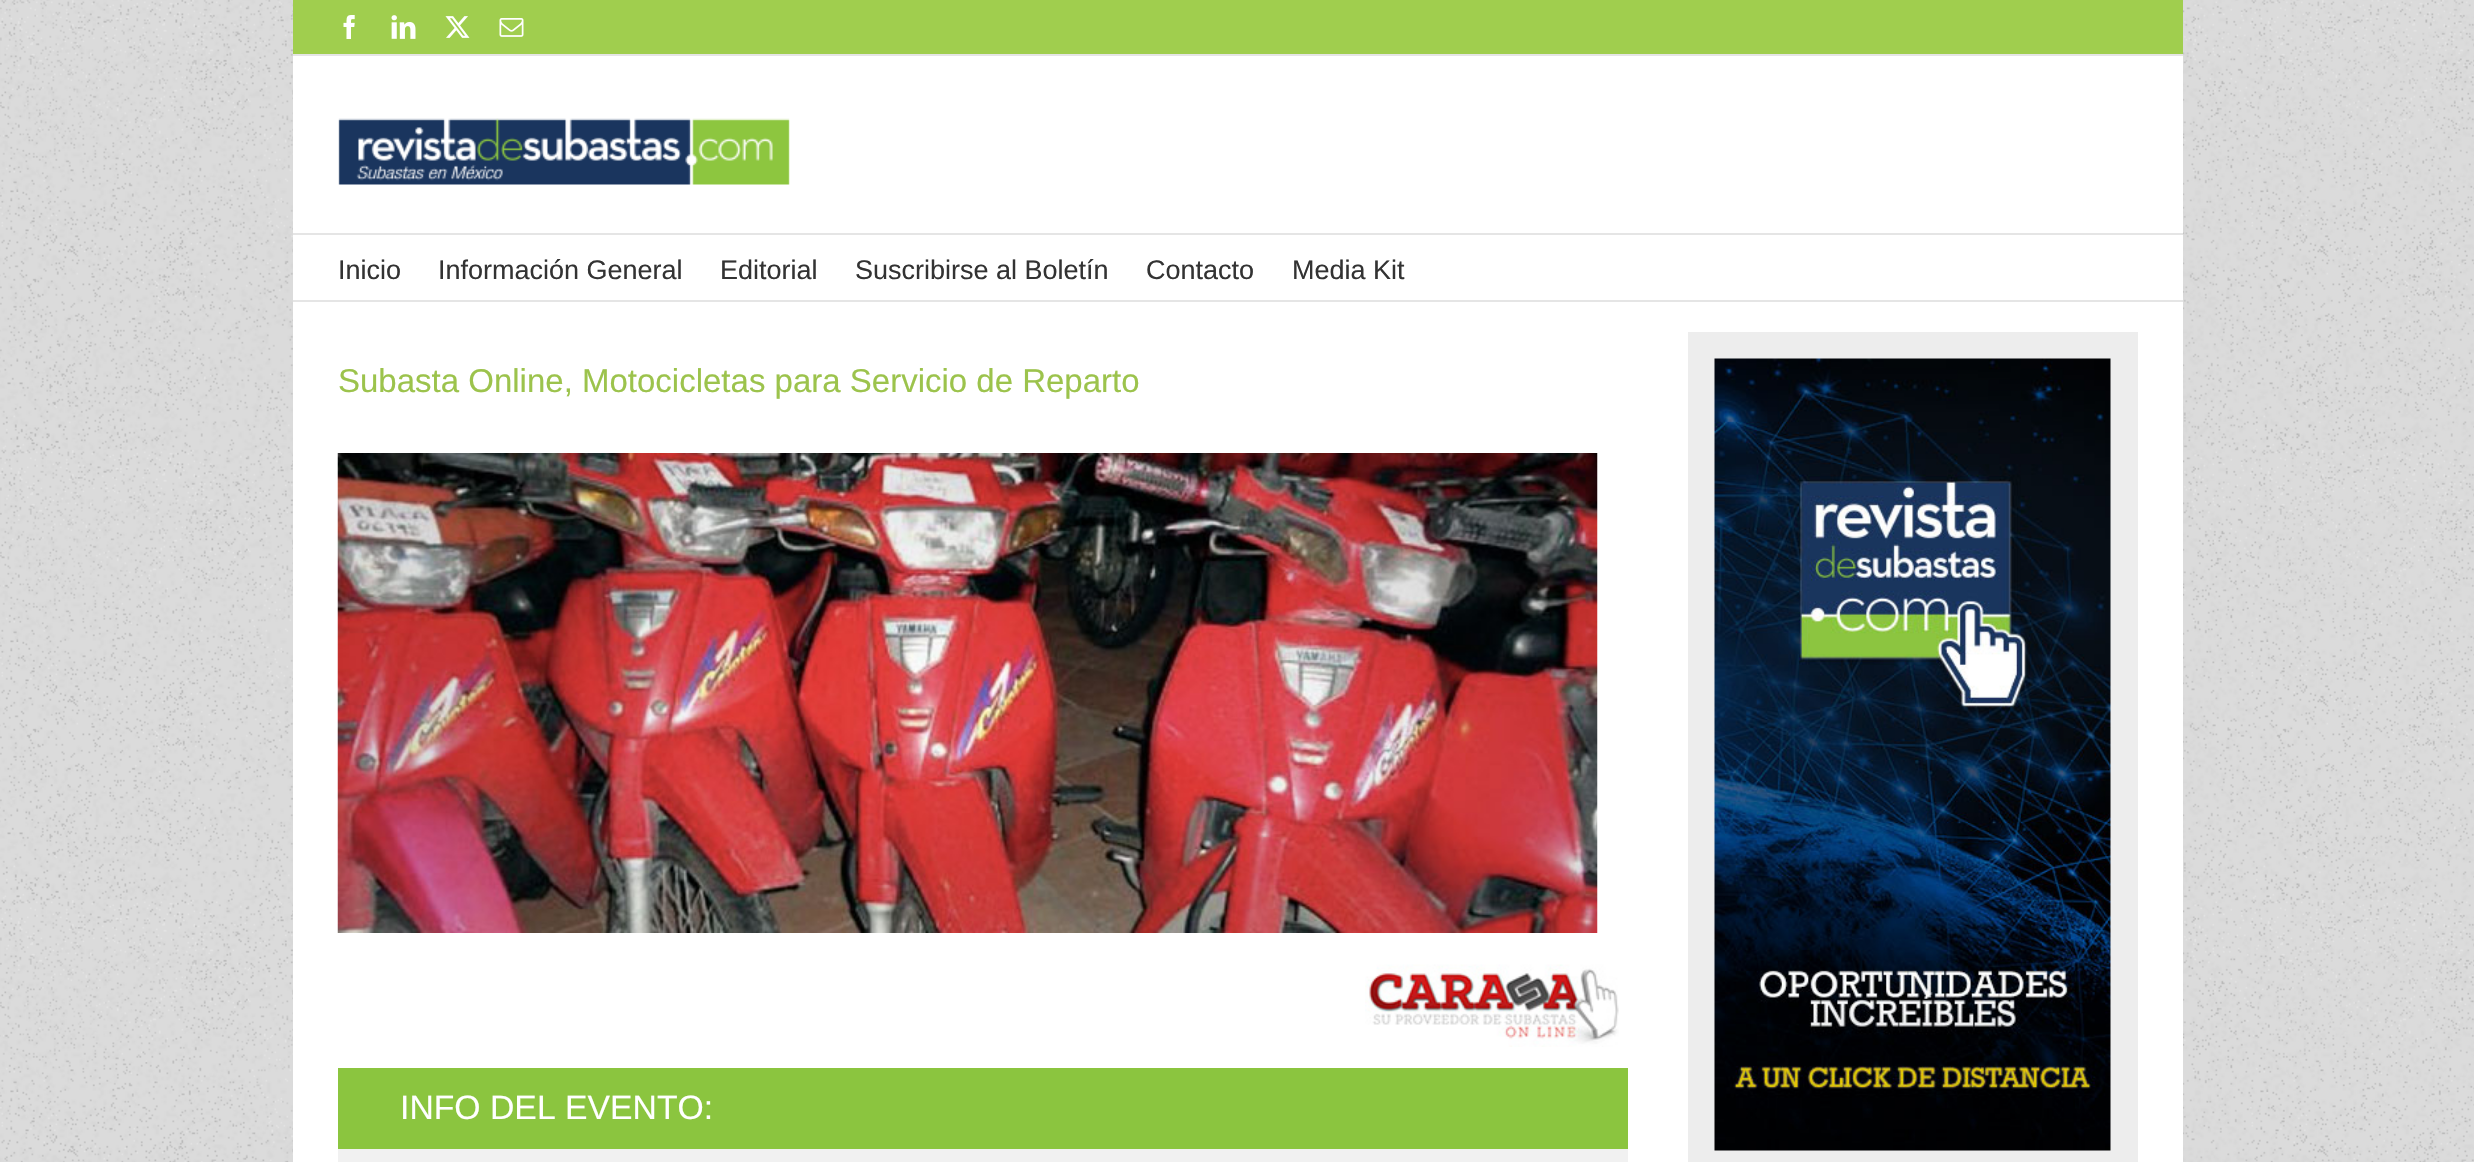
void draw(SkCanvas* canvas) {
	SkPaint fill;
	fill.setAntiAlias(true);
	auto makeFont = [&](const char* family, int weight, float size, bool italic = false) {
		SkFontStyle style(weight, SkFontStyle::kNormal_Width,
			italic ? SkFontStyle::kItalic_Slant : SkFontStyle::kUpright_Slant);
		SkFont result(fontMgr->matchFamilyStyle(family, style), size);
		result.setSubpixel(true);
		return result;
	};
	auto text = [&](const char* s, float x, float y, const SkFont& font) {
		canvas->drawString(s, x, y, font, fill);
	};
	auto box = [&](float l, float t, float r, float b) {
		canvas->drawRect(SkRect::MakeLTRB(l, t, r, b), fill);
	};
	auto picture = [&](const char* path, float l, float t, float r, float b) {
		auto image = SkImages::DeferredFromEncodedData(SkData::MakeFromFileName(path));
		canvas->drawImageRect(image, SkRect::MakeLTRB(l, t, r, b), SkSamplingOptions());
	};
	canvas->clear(0xFFFFFFFF);
	picture("image0.png", 0, 0, 2474, 1162);
	fill.setColor(0xFFA0CE4E);
	box(293, 0, 2183, 54);
	fill.setColor(0xFFE5E5E5);
	box(293, 54, 2183, 56);
	picture("image1.png", 343, 15, 355, 39);
	picture("image2.png", 391, 15, 416, 39);
	picture("image3.png", 445, 16, 470, 38);
	picture("image4.png", 499, 18, 524, 37);
	fill.setColor(0xFFFFFFFF);
	box(293, 56, 2183, 233);
	fill.setColor(0xFFE5E5E5);
	box(293, 233, 2183, 235);
	picture("image5.png", 338, 118, 790, 185);
	fill.setColor(0xFFFFFFFF);
	box(293, 235, 2183, 300);
	fill.setColor(0xFFE5E5E5);
	box(293, 300, 2183, 302);
	fill.setColor(0xFFFFFFFF);
	box(293, 302, 2183, 1162);
	picture("image6.png", 337, 453, 1598, 933);
	picture("image7.png", 1365, 964, 1619, 1047);
	fill.setColor(0xFFF1F1F1);
	box(338, 1149, 1628, 1162);
	fill.setColor(0xFF8BC53F);
	box(338, 1068, 1628, 1149);
	fill.setColor(0xFFEDEDED);
	box(1688, 332, 2138, 1162);
	picture("image8.png", 1714, 358, 2111, 1151);
	auto font1 = makeFont("Liberation Sans", 400, 27);
	fill.setColor(0xFF333333);
	text("Inicio", 338, 279, font1);
	text("Información General", 438, 279, font1);
	text("Editorial", 720, 279, font1);
	text("Suscribirse al Boletín", 855, 279, font1);
	text("Contacto", 1146, 279, font1);
	text("Media Kit", 1292, 279, font1);
	auto font2 = makeFont("Liberation Sans", 400, 33);
	fill.setColor(0xFF9CC34C);
	text("Subasta Online, Motocicletas para Servicio de Reparto", 338, 392, font2);
	auto font3 = makeFont("Liberation Sans", 400, 33.75f);
	fill.setColor(0xFFFFFFFF);
	text("INFO DEL EVENTO:", 400, 1119, font3);
}
